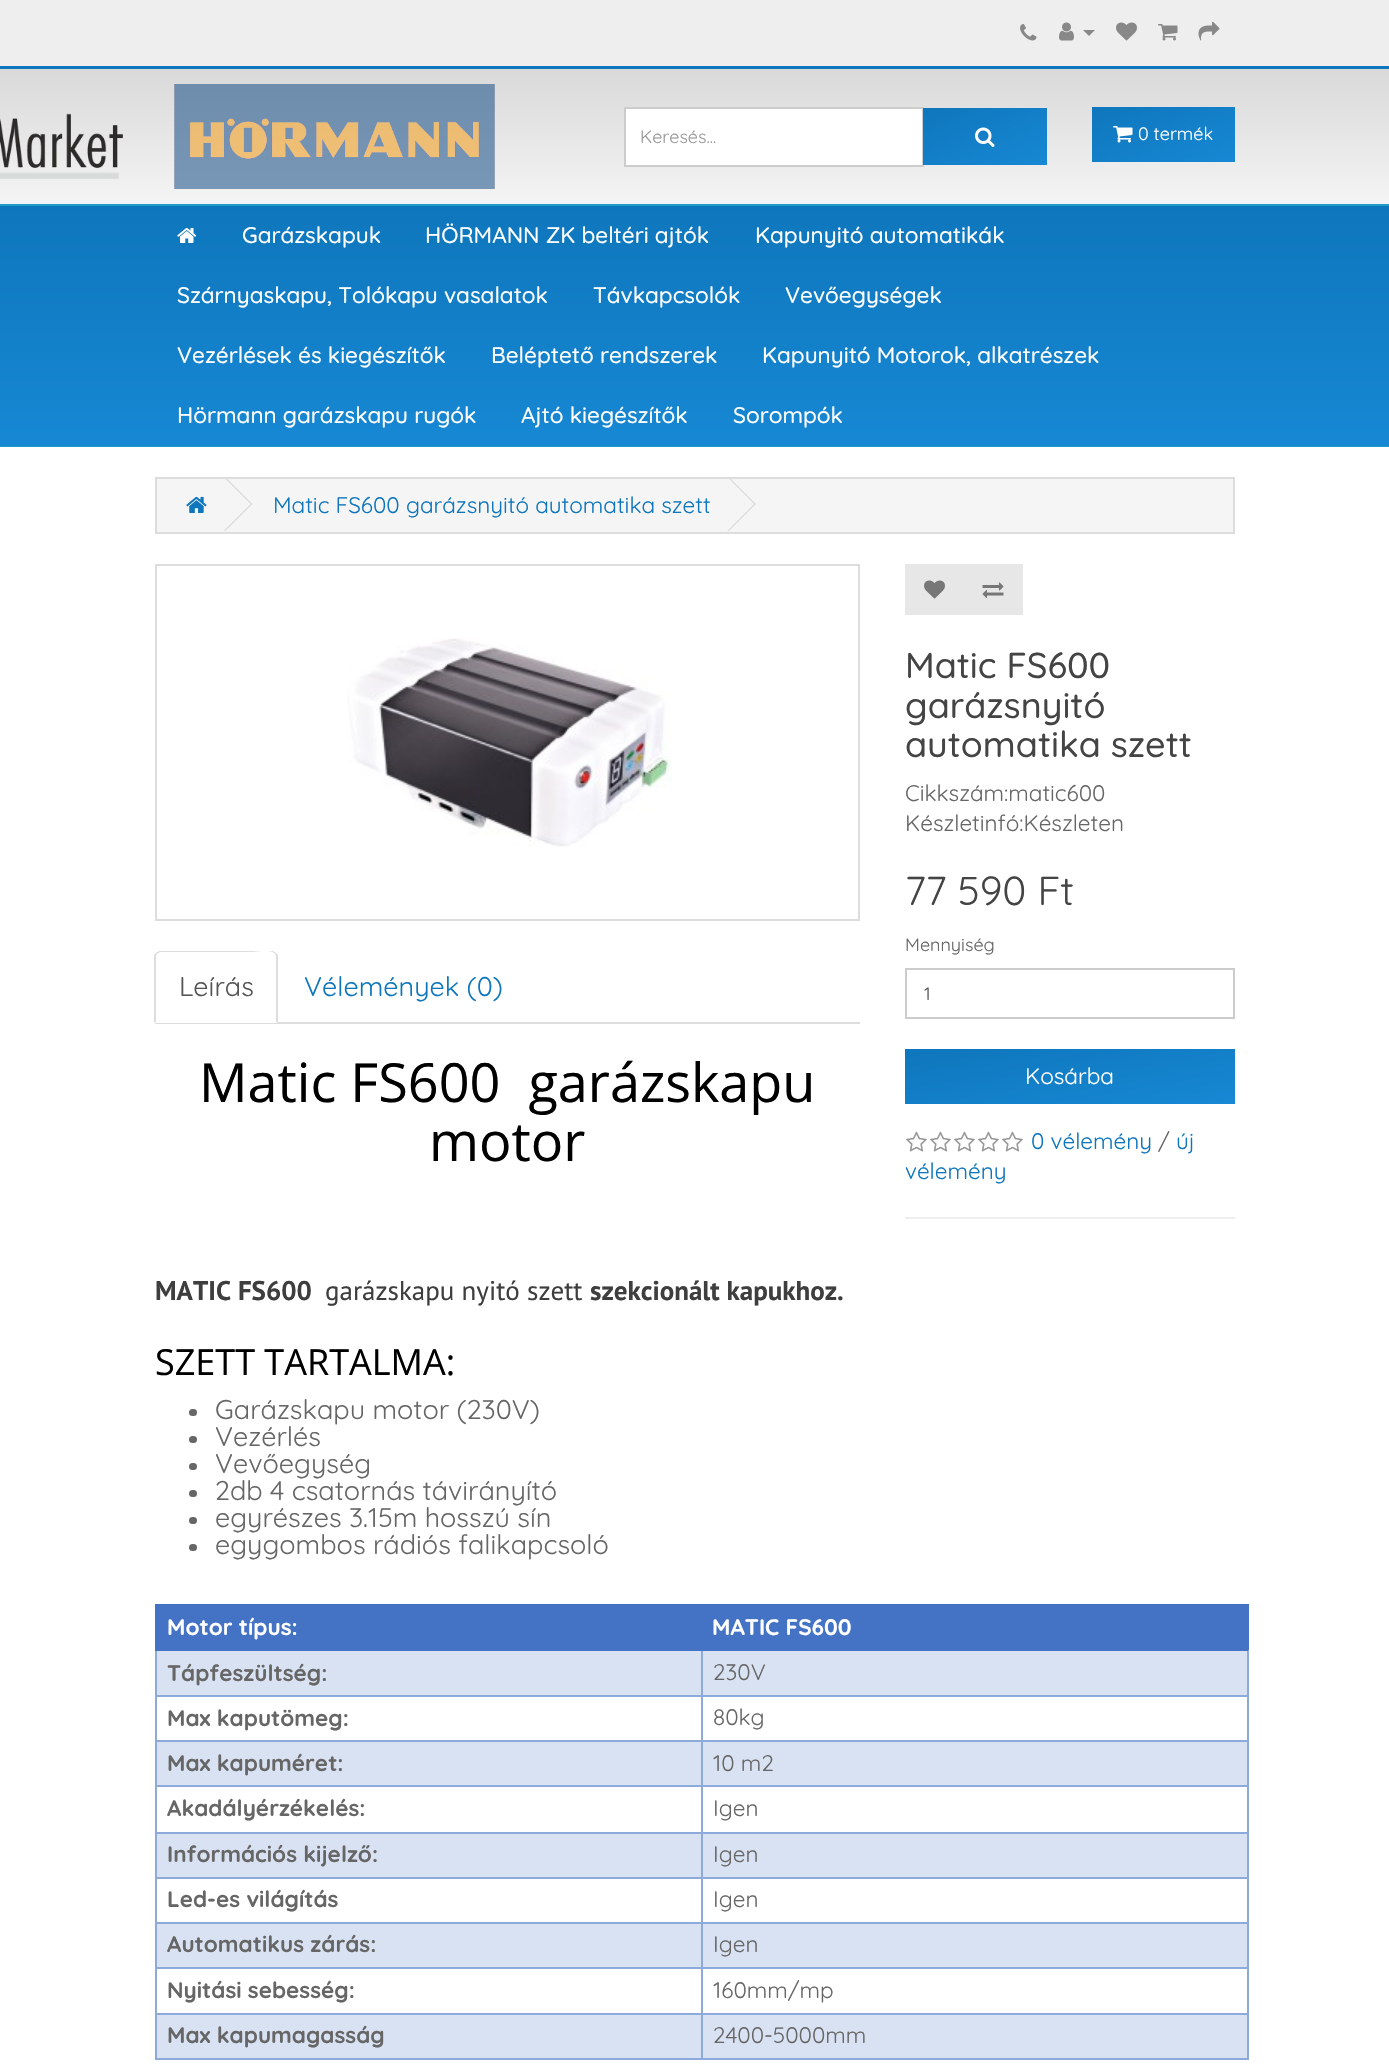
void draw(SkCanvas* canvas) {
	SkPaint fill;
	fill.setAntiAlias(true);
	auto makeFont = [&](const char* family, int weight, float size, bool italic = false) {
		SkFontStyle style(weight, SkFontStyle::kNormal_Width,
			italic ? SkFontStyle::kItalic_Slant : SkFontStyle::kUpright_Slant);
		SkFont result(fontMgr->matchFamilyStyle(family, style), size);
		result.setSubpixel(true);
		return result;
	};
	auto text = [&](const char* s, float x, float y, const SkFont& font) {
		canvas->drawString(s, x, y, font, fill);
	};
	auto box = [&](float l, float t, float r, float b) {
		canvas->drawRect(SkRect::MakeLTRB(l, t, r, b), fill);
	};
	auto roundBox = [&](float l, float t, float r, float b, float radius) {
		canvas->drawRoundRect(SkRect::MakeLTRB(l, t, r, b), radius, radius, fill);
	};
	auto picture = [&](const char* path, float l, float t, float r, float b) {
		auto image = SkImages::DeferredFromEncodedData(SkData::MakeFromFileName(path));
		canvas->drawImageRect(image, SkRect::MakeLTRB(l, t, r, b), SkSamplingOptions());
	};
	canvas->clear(0xFFFFFFFF);
	fill.setColor(0xFFEEEEEE);
	box(0, 0, 1389, 66);
	fill.setColor(0xFF0E76BC);
	box(0, 66, 1389, 69);
	picture("image0.png", 1020, 24, 1037, 41);
	picture("image1.png", 1059, 22, 1074, 41);
	fill.setColor(0xFF888888);
	canvas->drawPath(SkPathBuilder().moveTo(1083, 30).lineTo(1095, 30).lineTo(1089, 36).close().detach(), fill);
	picture("image2.png", 1116, 22, 1137, 41);
	picture("image3.png", 1158, 24, 1178, 41);
	picture("image4.png", 1198, 21, 1220, 41);
	{
		const SkColor colors[] = {0xFFD9D9D9, 0xFFF4F4F4};
		const float stops[] = {0, 1};
		const SkPoint ends[] = {{695, 69}, {695, 204}};
		fill.setShader(SkGradientShader::MakeLinear(ends, colors, stops, 2, SkTileMode::kClamp));
		fill.setAlpha(255);
	}
	box(0, 69, 1389, 204);
	picture("image5.png", 0, 113, 123, 179);
	picture("image6.png", 174, 84, 495, 189);
	fill.setShader(nullptr);
	fill.setColor(0xFFFFFFFF);
	canvas->drawRect(SkRect::MakeLTRB(625, 108, 923, 166), fill);
	fill.setStyle(SkPaint::kStroke_Style);
	fill.setStrokeWidth(2);
	fill.setColor(0xFFCCCCCC);
	canvas->drawRect(SkRect::MakeLTRB(625, 108, 923, 166), fill);
	fill.setStyle(SkPaint::kFill_Style);
	{
		const SkColor colors[] = {0xFF0E76BC, 0xFF1788D4};
		const float stops[] = {0, 1};
		const SkPoint ends[] = {{963, 89}, {1006, 184}};
		fill.setShader(SkGradientShader::MakeLinear(ends, colors, stops, 2, SkTileMode::kClamp));
		fill.setAlpha(255);
	}
	box(923, 108, 1047, 165);
	picture("image7.png", 975, 127, 995, 147);
	{
		const SkColor colors[] = {0xFF0E76BC, 0xFF1788D4};
		const float stops[] = {0, 1};
		const SkPoint ends[] = {{1144, 86}, {1182, 182}};
		fill.setShader(SkGradientShader::MakeLinear(ends, colors, stops, 2, SkTileMode::kClamp));
		fill.setAlpha(255);
	}
	box(1092, 107, 1235, 162);
	picture("image8.png", 1113, 126, 1133, 143);
	fill.setShader(nullptr);
	fill.setColor(0xFF229AC8);
	box(0, 204, 1389, 447);
	{
		const SkColor colors[] = {0xFF0E76BC, 0xFF1788D4};
		const float stops[] = {0, 1};
		const SkPoint ends[] = {{695, 205}, {695, 446}};
		fill.setShader(SkGradientShader::MakeLinear(ends, colors, stops, 2, SkTileMode::kClamp));
		fill.setAlpha(255);
	}
	box(0, 206, 1389, 446);
	picture("image9.png", 177, 228, 197, 243);
	fill.setShader(nullptr);
	fill.setColor(0xFFF5F5F5);
	canvas->drawRect(SkRect::MakeLTRB(156, 478, 1234, 533), fill);
	fill.setStyle(SkPaint::kStroke_Style);
	fill.setColor(0xFFDDDDDD);
	canvas->drawRect(SkRect::MakeLTRB(156, 478, 1234, 533), fill);
	picture("image10.png", 186, 496, 207, 513);
	canvas->save();
	canvas->clipRect(SkRect::MakeLTRB(156, 479, 1233, 533));
	fill.setStyle(SkPaint::kFill_Style);
	canvas->drawPath(SkPathBuilder().moveTo(224, 477.5f).lineTo(225, 476.5f).lineTo(252.5f, 504).lineTo(251.5f, 505).close().detach(), fill);
	canvas->restore();
	canvas->drawPath(SkPathBuilder().moveTo(224, 530.5f).lineTo(251.5f, 503).lineTo(252.5f, 504).lineTo(225, 531.5f).close().detach(), fill);
	canvas->save();
	canvas->clipRect(SkRect::MakeLTRB(156, 479, 1233, 533));
	canvas->drawPath(SkPathBuilder().moveTo(727.5f, 477.5f).lineTo(728.5f, 476.5f).lineTo(756, 504).lineTo(755, 505).close().detach(), fill);
	canvas->restore();
	canvas->drawPath(SkPathBuilder().moveTo(727.5f, 530.5f).lineTo(755, 503).lineTo(756, 504).lineTo(728.5f, 531.5f).close().detach(), fill);
	fill.setColor(0xFFE7E7E7);
	box(905, 564, 1023, 615);
	picture("image11.png", 924, 580, 945, 599);
	picture("image12.png", 982, 582, 1004, 599);
	fill.setStyle(SkPaint::kStroke_Style);
	fill.setColor(0xFFCCCCCC);
	canvas->drawRect(SkRect::MakeLTRB(906, 969, 1234, 1018), fill);
	fill.setStyle(SkPaint::kFill_Style);
	{
		const SkColor colors[] = {0xFF0E76BC, 0xFF1788D4};
		const float stops[] = {0, 1};
		const SkPoint ends[] = {{1060, 1022}, {1079, 1130}};
		fill.setShader(SkGradientShader::MakeLinear(ends, colors, stops, 2, SkTileMode::kClamp));
		fill.setAlpha(255);
	}
	box(905, 1049, 1235, 1104);
	picture("image13.png", 906, 1131, 927, 1152);
	picture("image13.png", 930, 1131, 951, 1152);
	picture("image13.png", 954, 1131, 975, 1152);
	picture("image13.png", 978, 1131, 999, 1152);
	picture("image13.png", 1002, 1131, 1023, 1152);
	fill.setShader(nullptr);
	fill.setColor(0xFFEEEEEE);
	box(905, 1217, 1235, 1219);
	fill.setStyle(SkPaint::kStroke_Style);
	fill.setColor(0xFFDDDDDD);
	canvas->drawRect(SkRect::MakeLTRB(156, 565, 859, 920), fill);
	picture("image14.png", 347, 638, 672, 847);
	fill.setStyle(SkPaint::kFill_Style);
	box(155, 1022, 860, 1024);
	fill.setColor(0xFFFFFFFF);
	canvas->drawPath(SkPathBuilder().moveTo(161, 951).lineTo(272, 951).cubicTo(275.5f, 951, 278, 953.5f, 278, 957).lineTo(278, 1023).lineTo(155, 1023).lineTo(155, 957).cubicTo(155, 953.5f, 157.5f, 951, 161, 951).close().detach(), fill);
	fill.setColor(0xFFDDDDDD);
	canvas->drawPath(SkPathBuilder().moveTo(160, 951).cubicTo(159, 951, 157, 952, 156, 953).lineTo(157, 954).lineTo(160, 952).lineTo(253, 952).cubicTo(255, 952, 271, 949, 275, 954).lineTo(276, 953).cubicTo(275, 952, 273, 951, 272, 951).close().detach(), fill);
	canvas->drawPath(SkPathBuilder().moveTo(278, 955).lineTo(278, 1023).lineTo(276, 1022).lineTo(276, 957).cubicTo(276, 956, 276, 955, 275, 954).lineTo(276, 953).close().detach(), fill);
	canvas->drawPath(SkPathBuilder().moveTo(154, 1023).lineTo(154, 955).lineTo(156, 953).lineTo(157, 954).cubicTo(156, 955, 156, 956, 156, 957).lineTo(156, 1022).close().detach(), fill);
	fill.setColor(0xFF666666);
	roundBox(189, 1409, 197, 1416, 3.5f);
	roundBox(189, 1436, 197, 1443, 3.5f);
	roundBox(189, 1463, 197, 1470, 3.5f);
	roundBox(189, 1490, 197, 1497, 3.5f);
	roundBox(189, 1517, 197, 1524, 3.5f);
	roundBox(189, 1544, 197, 1551, 3.5f);
	fill.setColor(0xFF4472C4);
	box(157, 1606, 1247, 1649);
	box(155, 1604, 1248, 1606);
	fill.setColor(0xFF8EAADB);
	box(1247, 1649, 1249, 2060);
	fill.setColor(0xFF4472C4);
	box(1247, 1604, 1249, 1650);
	fill.setColor(0xFF8EAADB);
	box(701, 2058, 1248, 2060);
	box(701, 2013, 703, 2060);
	box(701, 2013, 1248, 2015);
	box(701, 1967, 703, 2015);
	box(701, 1967, 1248, 1969);
	box(701, 1922, 703, 1968);
	box(701, 1922, 1248, 1924);
	box(701, 1877, 703, 1923);
	box(701, 1877, 1248, 1879);
	box(701, 1832, 703, 1878);
	box(701, 1832, 1248, 1834);
	box(701, 1785, 703, 1833);
	box(701, 1785, 1248, 1787);
	box(701, 1740, 703, 1787);
	box(701, 1740, 1248, 1742);
	box(701, 1695, 703, 1742);
	box(701, 1695, 1248, 1697);
	box(701, 1649, 703, 1697);
	box(155, 2058, 702, 2060);
	box(155, 2013, 157, 2060);
	box(155, 2013, 702, 2015);
	box(155, 1967, 157, 2015);
	box(155, 1967, 702, 1969);
	box(155, 1922, 157, 1968);
	box(155, 1922, 702, 1924);
	box(155, 1877, 157, 1923);
	box(155, 1877, 702, 1879);
	box(155, 1832, 157, 1878);
	box(155, 1832, 702, 1834);
	box(155, 1785, 157, 1833);
	box(155, 1785, 702, 1787);
	box(155, 1740, 157, 1787);
	box(155, 1740, 702, 1742);
	box(155, 1695, 157, 1742);
	box(155, 1695, 702, 1697);
	box(155, 1649, 157, 1697);
	fill.setColor(0xFF4472C4);
	box(155, 1649, 1248, 1651);
	box(155, 1604, 157, 1650);
	fill.setColor(0xFFD9E2F3);
	box(157, 1651, 701, 1695);
	box(703, 1651, 1247, 1695);
	box(157, 1742, 701, 1785);
	box(703, 1742, 1247, 1785);
	box(157, 1834, 701, 1877);
	box(703, 1834, 1247, 1877);
	box(157, 1924, 701, 1967);
	box(703, 1924, 1247, 1967);
	box(157, 2015, 701, 2058);
	box(703, 2015, 1247, 2058);
	auto font1 = makeFont("Quicksand", 400, 18);
	fill.setColor(0xFF999999);
	text("Keresés...", 640, 143, font1);
	fill.setColor(0xFFFFFFFF);
	text("0 termék", 1138, 140, font1);
	auto font2 = makeFont("Quicksand", 500, 22.5f);
	text("Garázskapuk", 242, 243, font2);
	text("HÖRMANN ZK beltéri ajtók", 425, 243, font2);
	text("Kapunyitó automatikák", 755, 243, font2);
	text("Szárnyaskapu, Tolókapu vasalatok", 177, 303, font2);
	text("Távkapcsolók", 593, 303, font2);
	text("Vevőegységek", 785, 303, font2);
	text("Vezérlések és kiegészítők", 177, 363, font2);
	text("Beléptető rendszerek", 491, 363, font2);
	text("Kapunyitó Motorok, alkatrészek", 762, 363, font2);
	text("Hörmann garázskapu rugók", 177, 423, font2);
	text("Ajtó kiegészítők", 521, 423, font2);
	text("Sorompók", 733, 423, font2);
	auto font3 = makeFont("Quicksand", 400, 22.5f);
	fill.setColor(0xFF0E76BC);
	text("Matic FS600 garázsnyitó automatika szett", 273, 513, font3);
	auto font4 = makeFont("Quicksand", 500, 36);
	fill.setColor(0xFF444444);
	text("Matic FS600", 905, 678, font4);
	text("garázsnyitó", 905, 718, font4);
	text("automatika szett", 905, 757, font4);
	fill.setColor(0xFF666666);
	text("Cikkszám:matic600", 905, 801, font3);
	text("Készletinfó:Készleten", 905, 831, font3);
	auto font5 = makeFont("Quicksand", 400, 40.5f);
	fill.setColor(0xFF444444);
	text("77 590 Ft", 905, 905, font5);
	fill.setColor(0xFF666666);
	text("Mennyiség", 905, 951, font1);
	fill.setColor(0xFF555555);
	text("1", 924, 1000, font1);
	fill.setColor(0xFFFFFFFF);
	text("Kosárba", 1025, 1084, font3);
	fill.setColor(0xFF0E76BC);
	text("0 vélemény", 1031, 1149, font3);
	fill.setColor(0xFF666666);
	text("/", 1158, 1149, font3);
	fill.setColor(0xFF0E76BC);
	text("új", 1176, 1149, font3);
	text("vélemény", 905, 1179, font3);
	auto font6 = makeFont("Quicksand", 400, 27);
	fill.setColor(0xFF555555);
	text("Leírás", 179, 996, font6);
	fill.setColor(0xFF0E76BC);
	text("Vélemények (0)", 304, 996, font6);
	auto font7 = makeFont("Open Sans", 400, 54);
	fill.setColor(0xFF000000);
	text("Matic FS600  garázskapu", 199, 1102, font7);
	text("motor", 429, 1161, font7);
	auto font8 = makeFont("PT Sans", 700, 27);
	fill.setColor(0xFF3E3E3E);
	text("MATIC FS600", 155, 1300, font8);
	auto font9 = makeFont("PT Sans", 400, 27);
	text("garázskapu nyitó szett", 325, 1300, font9);
	text("szekcionált kapukhoz.", 590, 1300, font8);
	auto font10 = makeFont("Open Sans", 400, 36);
	fill.setColor(0xFF000000);
	text("SZETT TARTALMA:", 155, 1375, font10);
	fill.setColor(0xFF666666);
	text("Garázskapu motor (230V)", 215, 1419, font6);
	text("Vezérlés", 215, 1446, font6);
	text("Vevőegység", 215, 1473, font6);
	text("2db 4 csatornás távirányító", 215, 1500, font6);
	text("egyrészes 3.15m hosszú sín", 215, 1527, font6);
	text("egygombos rádiós falikapcsoló", 215, 1554, font6);
	auto font11 = makeFont("Quicksand", 700, 22.5f);
	fill.setColor(0xFFFFFFFF);
	text("Motor típus:", 167, 1635, font11);
	text("MATIC FS600", 712, 1635, font11);
	fill.setColor(0xFF666666);
	text("Tápfeszültség:", 167, 1681, font11);
	text("230V", 713, 1680, font3);
	text("Max kaputömeg:", 167, 1726, font11);
	text("80kg", 713, 1725, font3);
	text("Max kapuméret:", 167, 1771, font11);
	text("10 m2", 713, 1771, font3);
	text("Akadályérzékelés:", 167, 1816, font11);
	text("Igen", 713, 1816, font3);
	text("Információs kijelző:", 167, 1862, font11);
	text("Igen", 713, 1862, font3);
	text("Led-es világítás", 167, 1907, font11);
	text("Igen", 713, 1907, font3);
	text("Automatikus zárás:", 167, 1952, font11);
	text("Igen", 713, 1952, font3);
	text("Nyitási sebesség:", 167, 1998, font11);
	text("160mm/mp", 713, 1998, font3);
	text("Max kapumagasság", 167, 2043, font11);
	text("2400-5000mm", 713, 2043, font3);
}
